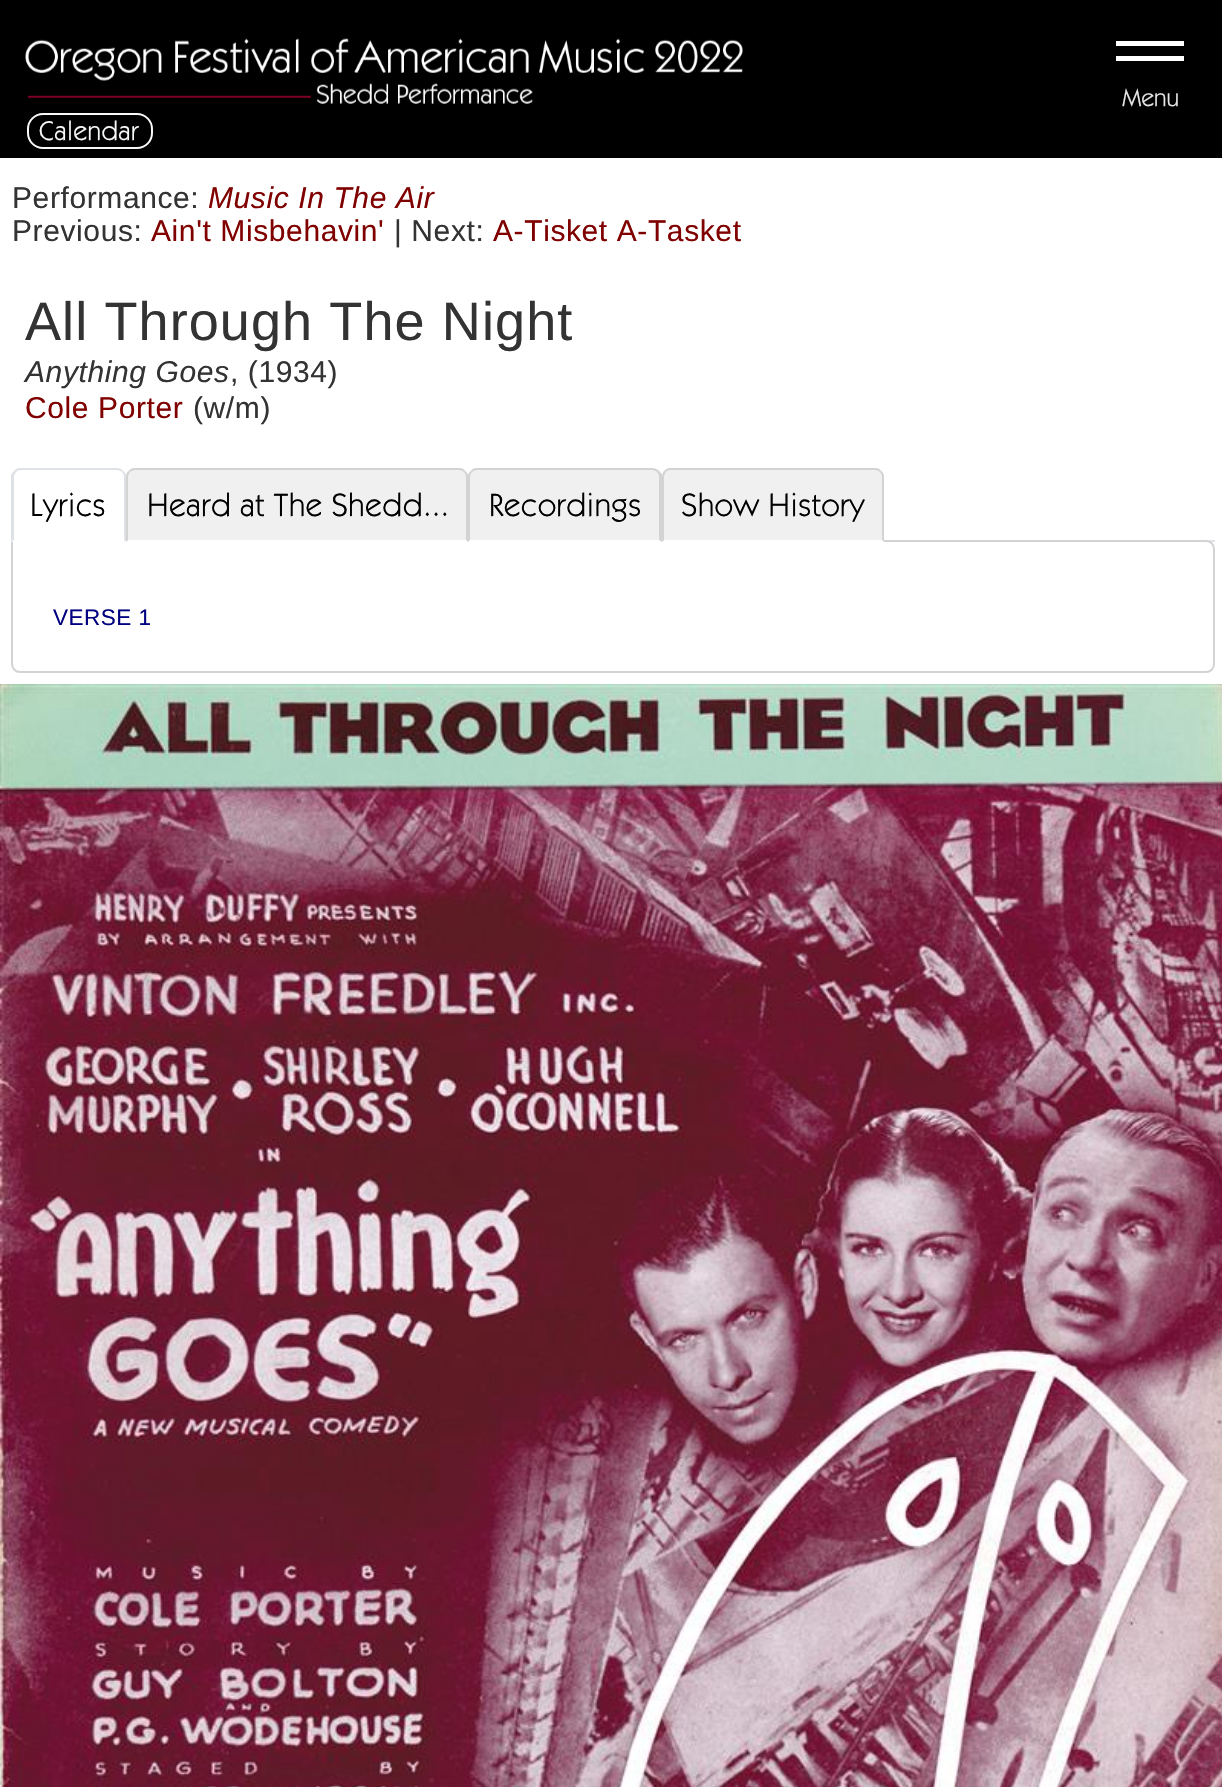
void draw(SkCanvas* canvas) {
	SkPaint fill;
	fill.setAntiAlias(true);
	auto makeFont = [&](const char* family, int weight, float size, bool italic = false) {
		SkFontStyle style(weight, SkFontStyle::kNormal_Width,
			italic ? SkFontStyle::kItalic_Slant : SkFontStyle::kUpright_Slant);
		SkFont result(fontMgr->matchFamilyStyle(family, style), size);
		result.setSubpixel(true);
		return result;
	};
	auto text = [&](const char* s, float x, float y, const SkFont& font) {
		canvas->drawString(s, x, y, font, fill);
	};
	auto spacedText = [&](const char* s, float x, float y, const SkFont& font, const SkPaint& ink, float letter, float word) {
		std::vector<SkGlyphID> glyphs(font.countText(s, strlen(s), SkTextEncoding::kUTF8));
		std::vector<float> xs(glyphs.size());
		font.textToGlyphs(s, strlen(s), SkTextEncoding::kUTF8, glyphs);
		font.getXPos(glyphs, xs, x);
		float extra = 0;
		for (size_t i = 0; i < glyphs.size(); i++) {
			xs[i] += extra;
			extra += letter + word * (glyphs[i] == font.unicharToGlyph(' '));
		}
		canvas->drawTextBlob(SkTextBlob::MakeFromPosHGlyphs(glyphs, xs, y, font), 0, 0, ink);
	};
	auto box = [&](float l, float t, float r, float b) {
		canvas->drawRect(SkRect::MakeLTRB(l, t, r, b), fill);
	};
	auto picture = [&](const char* path, float l, float t, float r, float b) {
		auto image = SkImages::DeferredFromEncodedData(SkData::MakeFromFileName(path));
		canvas->drawImageRect(image, SkRect::MakeLTRB(l, t, r, b), SkSamplingOptions());
	};
	canvas->clear(0xFFFFFFFF);
	fill.setColor(0xFF000000);
	box(0, 0, 1222, 158);
	picture("image0.png", 25, 38, 743, 104);
	fill.setColor(0xFFFFFFFF);
	box(1116, 41, 1184, 46);
	box(1116, 56, 1184, 61);
	fill.setStyle(SkPaint::kStroke_Style);
	fill.setStrokeWidth(2);
	fill.setColor(0xFFF8F9FA);
	canvas->drawRoundRect(SkRect::MakeLTRB(28, 114, 152, 148), 15, 15, fill);
	fill.setStyle(SkPaint::kFill_Style);
	fill.setColor(0xFFDEE2E6);
	box(1206, 540, 1215, 542);
	fill.setStyle(SkPaint::kStroke_Style);
	fill.setColor(0xFFD3D3D3);
	canvas->drawPath(SkPathBuilder().moveTo(12, 541).lineTo(1206, 541).cubicTo(1210.5f, 541, 1214, 544.5f, 1214, 549).lineTo(1214, 664).cubicTo(1214, 668.5f, 1210.5f, 672, 1206, 672).lineTo(20, 672).cubicTo(15.5f, 672, 12, 668.5f, 12, 664).close().detach(), fill);
	fill.setStyle(SkPaint::kFill_Style);
	fill.setColor(0xFFFFFFFF);
	canvas->drawPath(SkPathBuilder().moveTo(20, 468).lineTo(117, 468).cubicTo(122, 468, 126, 472, 126, 477).lineTo(126, 542).lineTo(11, 542).lineTo(11, 477).cubicTo(11, 472, 15, 468, 20, 468).close().detach(), fill);
	fill.setColor(0xFFDEE2E6);
	canvas->drawPath(SkPathBuilder().moveTo(20, 468).cubicTo(18, 468, 15, 469, 14, 471).lineTo(16, 472).cubicTo(17, 471, 18, 470, 20, 470).lineTo(117, 470).cubicTo(119, 470, 121, 471, 122, 472).lineTo(123, 471).cubicTo(122, 469, 120, 468, 117, 468).close().detach(), fill);
	canvas->drawPath(SkPathBuilder().moveTo(126, 542).lineTo(126, 477).cubicTo(126, 474, 125, 472, 123, 471).lineTo(122, 472).cubicTo(123, 473, 124, 475, 124, 477).lineTo(124, 540).close().detach(), fill);
	fill.setColor(0xFFFFFFFF);
	canvas->drawPath(SkPathBuilder().moveTo(126, 542).lineTo(12, 542).lineTo(14, 540).lineTo(124, 540).close().detach(), fill);
	fill.setColor(0xFFDEE2E6);
	canvas->drawPath(SkPathBuilder().moveTo(11, 475).cubicTo(12, 473, 13, 472, 14, 471).lineTo(16, 472).cubicTo(15, 474, 14, 475, 14, 477).lineTo(14, 540).lineTo(11, 542).close().detach(), fill);
	fill.setColor(0xFFF0F0F0);
	canvas->drawPath(SkPathBuilder().moveTo(135, 468).lineTo(459, 468).cubicTo(464, 468, 468, 472, 468, 477).lineTo(468, 542).lineTo(126, 542).lineTo(126, 477).cubicTo(126, 472, 130, 468, 135, 468).close().detach(), fill);
	fill.setColor(0xFFD3D3D3);
	canvas->drawPath(SkPathBuilder().moveTo(135, 468).cubicTo(132, 468, 130, 469, 129, 471).lineTo(130, 472).cubicTo(131, 471, 133, 470, 135, 470).lineTo(459, 470).cubicTo(461, 470, 463, 471, 464, 472).lineTo(465, 471).cubicTo(464, 469, 462, 468, 459, 468).close().detach(), fill);
	canvas->drawPath(SkPathBuilder().moveTo(468, 542).lineTo(468, 477).cubicTo(468, 474, 467, 472, 465, 471).lineTo(464, 472).cubicTo(465, 473, 466, 475, 466, 477).lineTo(466, 540).close().detach(), fill);
	fill.setColor(0xFFFFFFFF);
	canvas->drawPath(SkPathBuilder().moveTo(468, 542).lineTo(126, 542).lineTo(128, 540).lineTo(466, 540).close().detach(), fill);
	fill.setColor(0xFFD3D3D3);
	canvas->drawPath(SkPathBuilder().moveTo(126, 477).lineTo(126, 542).lineTo(128, 540).lineTo(128, 477).cubicTo(128, 475, 129, 473, 130, 472).lineTo(129, 471).cubicTo(127, 472, 126, 474, 126, 477).close().detach(), fill);
	fill.setColor(0xFFF0F0F0);
	canvas->drawPath(SkPathBuilder().moveTo(477, 468).lineTo(653, 468).cubicTo(658, 468, 662, 472, 662, 477).lineTo(662, 542).lineTo(468, 542).lineTo(468, 477).cubicTo(468, 472, 472, 468, 477, 468).close().detach(), fill);
	fill.setColor(0xFFD3D3D3);
	canvas->drawPath(SkPathBuilder().moveTo(477, 468).cubicTo(474, 468, 472, 469, 471, 471).lineTo(472, 472).cubicTo(473, 471, 475, 470, 477, 470).lineTo(652, 470).cubicTo(654, 470, 656, 471, 657, 472).lineTo(659, 471).cubicTo(657, 469, 654, 468, 652, 468).close().detach(), fill);
	canvas->drawPath(SkPathBuilder().moveTo(662, 542).lineTo(659, 540).lineTo(659, 477).cubicTo(659, 475, 658, 473, 657, 472).lineTo(659, 471).lineTo(662, 474).close().detach(), fill);
	fill.setColor(0xFFFFFFFF);
	canvas->drawPath(SkPathBuilder().moveTo(661, 542).lineTo(468, 542).lineTo(470, 540).lineTo(659, 540).close().detach(), fill);
	fill.setColor(0xFFD3D3D3);
	canvas->drawPath(SkPathBuilder().moveTo(468, 477).lineTo(468, 542).lineTo(470, 540).lineTo(470, 477).cubicTo(470, 475, 471, 473, 472, 472).lineTo(471, 471).cubicTo(469, 472, 468, 474, 468, 477).close().detach(), fill);
	fill.setColor(0xFFF0F0F0);
	canvas->drawPath(SkPathBuilder().moveTo(671, 468).lineTo(875, 468).cubicTo(880, 468, 884, 472, 884, 477).lineTo(884, 542).lineTo(662, 542).lineTo(662, 477).cubicTo(662, 472, 666, 468, 671, 468).close().detach(), fill);
	fill.setColor(0xFFD3D3D3);
	canvas->drawPath(SkPathBuilder().moveTo(670, 468).cubicTo(668, 468, 666, 469, 664, 471).lineTo(666, 472).cubicTo(667, 471, 668, 470, 670, 470).lineTo(875, 470).cubicTo(877, 470, 879, 471, 880, 472).lineTo(881, 471).cubicTo(880, 469, 878, 468, 875, 468).close().detach(), fill);
	canvas->drawPath(SkPathBuilder().moveTo(881, 471).cubicTo(883, 472, 884, 475, 884, 477).lineTo(884, 542).lineTo(882, 540).lineTo(882, 477).cubicTo(882, 475, 881, 473, 880, 472).close().detach(), fill);
	fill.setColor(0xFFFFFFFF);
	canvas->drawPath(SkPathBuilder().moveTo(884, 542).lineTo(882, 540).lineTo(664, 540).lineTo(662, 542).close().detach(), fill);
	fill.setColor(0xFFD3D3D3);
	canvas->drawPath(SkPathBuilder().moveTo(664, 471).cubicTo(663, 472, 662, 475, 662, 477).lineTo(662, 542).lineTo(664, 540).lineTo(664, 477).cubicTo(664, 475, 665, 473, 666, 472).close().detach(), fill);
	picture("image1.png", 0, 684, 1222, 1787);
	auto font1 = makeFont("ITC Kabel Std", 400, 25);
	fill.setColor(0xFFE6E6E6);
	text("Menu", 1122, 106, font1);
	auto font2 = makeFont("ITC Kabel Std", 400, 27);
	fill.setColor(0xFFF8F9FA);
	spacedText("Calendar", 39, 140, font2, fill, 0.5f, 0);
	auto font3 = makeFont("Liberation Sans", 400, 30);
	fill.setColor(0xFF333333);
	spacedText("Performance:", 12, 208, font3, fill, 0.6f, 0);
	auto font4 = makeFont("Liberation Sans", 400, 30, true);
	fill.setColor(0xFF800000);
	spacedText("Music In The Air", 208, 208, font4, fill, 0.6f, 0);
	fill.setColor(0xFF333333);
	spacedText("Previous:", 12, 241, font3, fill, 0.6f, 0);
	fill.setColor(0xFF800000);
	spacedText("Ain't Misbehavin'", 151, 241, font3, fill, 0.6f, 0);
	fill.setColor(0xFF333333);
	spacedText("| Next:", 394, 241, font3, fill, 0.6f, 0);
	fill.setColor(0xFF800000);
	spacedText("A-Tisket A-Tasket", 493, 241, font3, fill, 0.6f, 0);
	auto font5 = makeFont("Liberation Sans", 400, 54);
	fill.setColor(0xFF333333);
	spacedText("All Through The Night", 25, 340, font5, fill, 1.1f, 0);
	spacedText("Anything Goes", 25, 382, font4, fill, 0.6f, 0);
	spacedText(", (1934)", 230, 382, font3, fill, 0.6f, 0);
	fill.setColor(0xFF800000);
	spacedText("Cole Porter", 25, 418, font3, fill, 0.6f, 0);
	fill.setColor(0xFF333333);
	spacedText("(w/m)", 193, 418, font3, fill, 0.6f, 0);
	auto font6 = makeFont("ITC Kabel Std", 400, 32.5f);
	fill.setColor(0xFF000000);
	spacedText("Lyrics", 30, 516, font6, fill, 0.65f, 0);
	spacedText("Heard at The Shedd...", 147, 516, font6, fill, 0.65f, 0);
	spacedText("Recordings", 489, 516, font6, fill, 0.65f, 0);
	spacedText("Show History", 681, 516, font6, fill, 0.65f, 0);
	auto font7 = makeFont("Liberation Sans", 400, 22.5f);
	fill.setColor(0xFF000080);
	spacedText("VERSE 1", 53, 625, font7, fill, 0.5f, 0);
}
